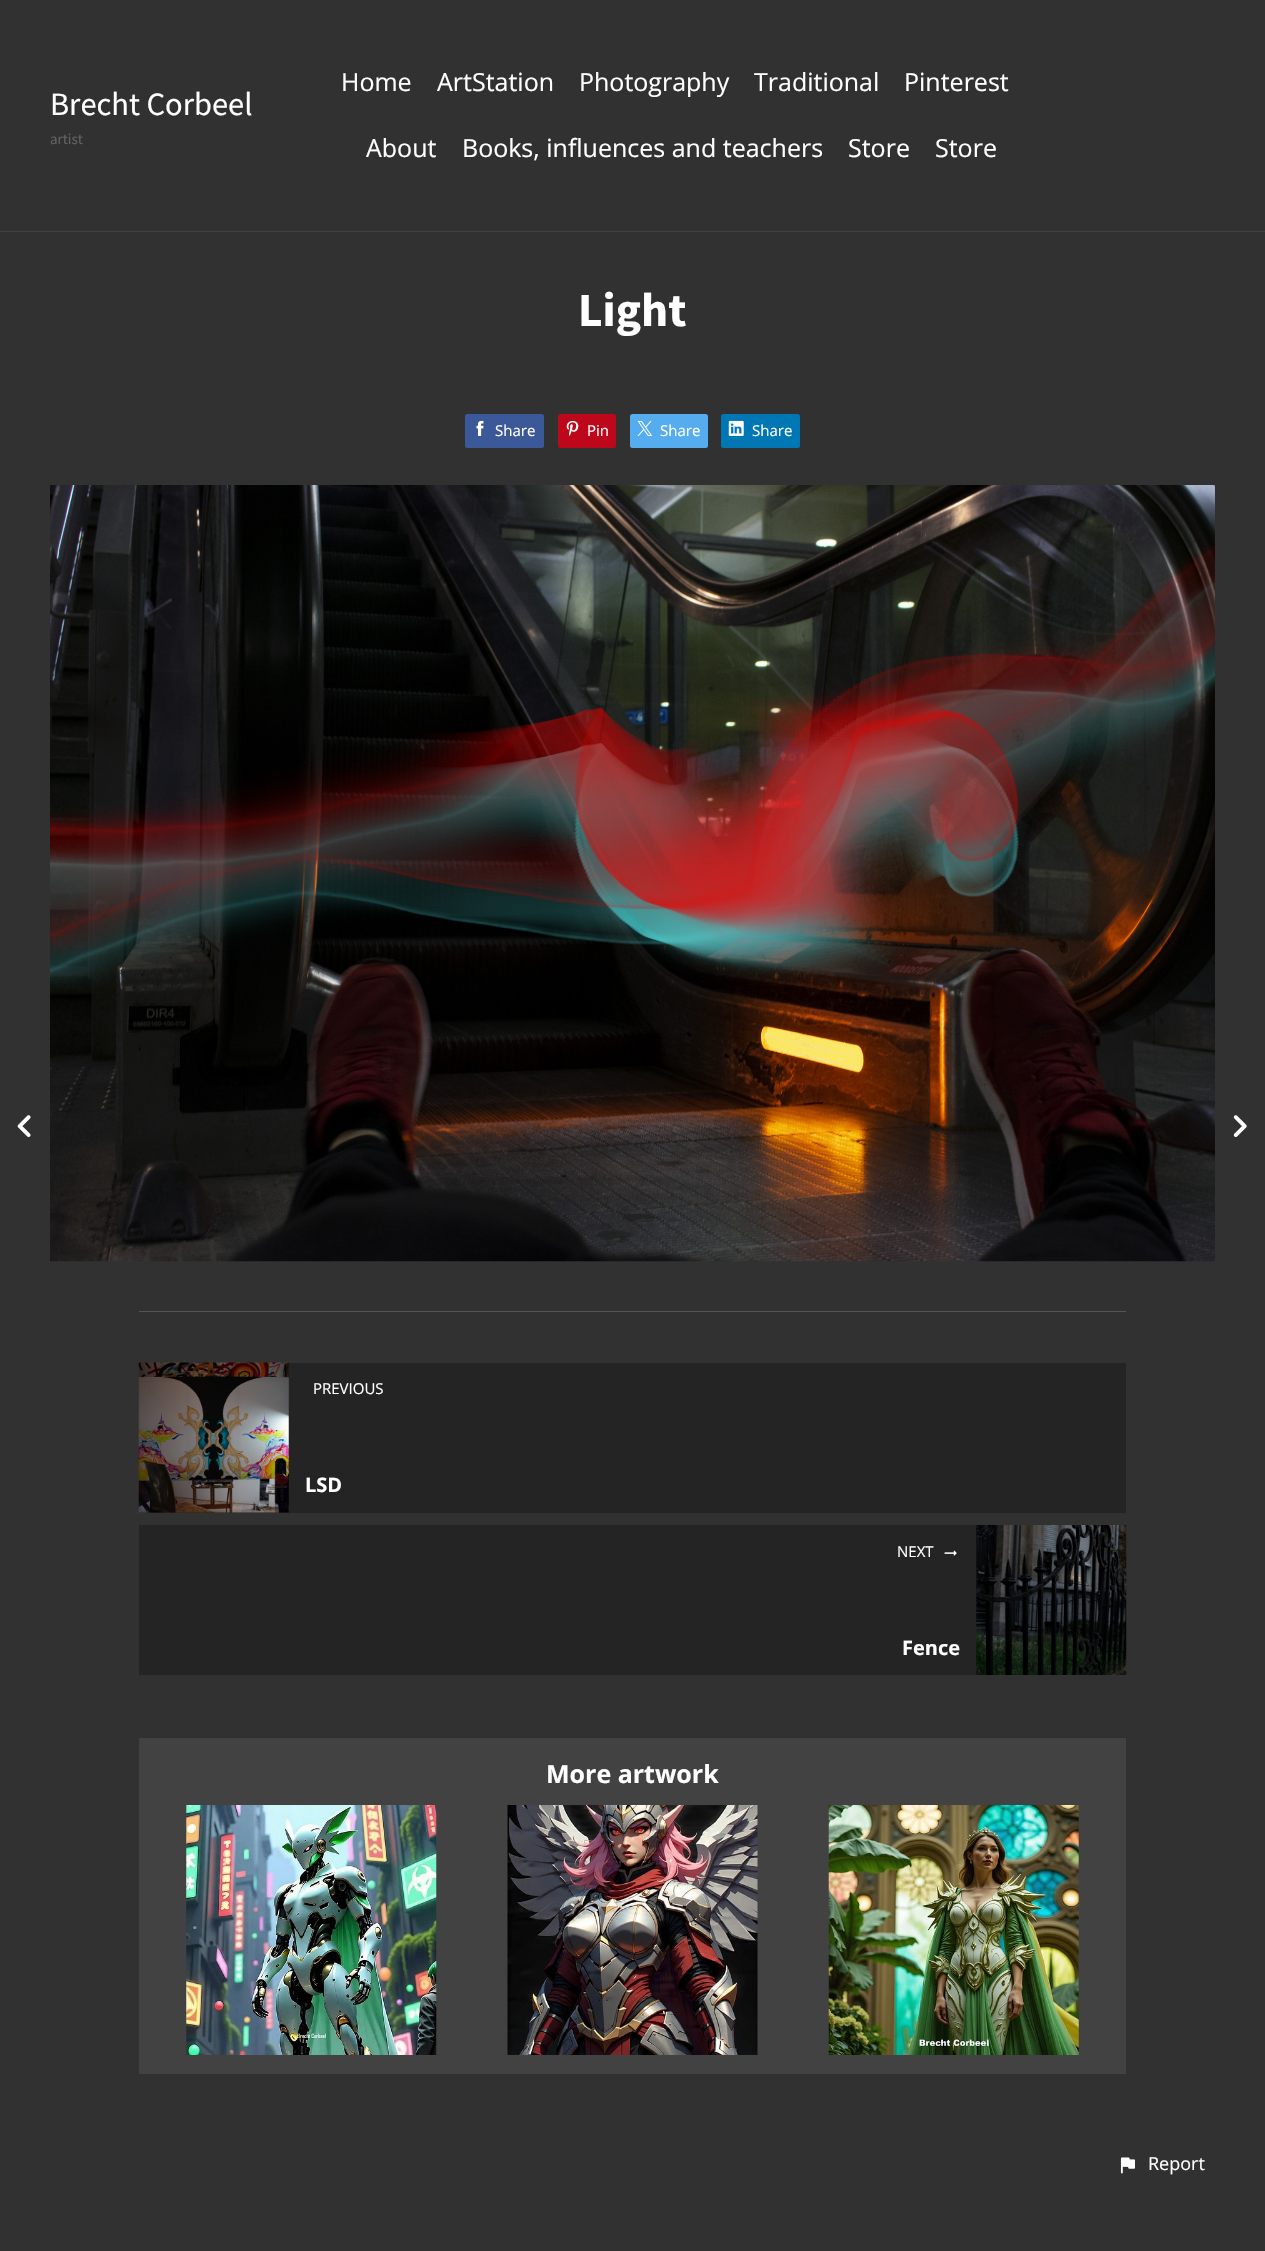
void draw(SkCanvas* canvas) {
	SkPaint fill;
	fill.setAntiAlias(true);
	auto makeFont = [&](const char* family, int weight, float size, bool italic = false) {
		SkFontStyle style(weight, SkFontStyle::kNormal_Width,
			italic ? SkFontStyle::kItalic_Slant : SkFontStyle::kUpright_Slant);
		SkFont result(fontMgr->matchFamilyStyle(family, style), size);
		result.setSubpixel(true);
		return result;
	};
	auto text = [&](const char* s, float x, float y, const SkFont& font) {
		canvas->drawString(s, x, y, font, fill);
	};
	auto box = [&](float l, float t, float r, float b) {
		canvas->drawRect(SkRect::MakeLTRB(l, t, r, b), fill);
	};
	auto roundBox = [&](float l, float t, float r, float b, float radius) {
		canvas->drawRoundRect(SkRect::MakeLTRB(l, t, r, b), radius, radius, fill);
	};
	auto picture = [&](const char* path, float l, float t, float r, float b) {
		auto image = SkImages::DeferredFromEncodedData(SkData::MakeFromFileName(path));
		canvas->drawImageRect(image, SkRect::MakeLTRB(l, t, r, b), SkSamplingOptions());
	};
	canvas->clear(0xFF313131);
	fill.setColor(0xFF424242);
	box(0, 231, 1265, 232);
	picture("image0.png", 17, 1115, 31, 1137);
	fill.setColor(0xFF3B5999);
	roundBox(465, 414, 544, 448, 2.5f);
	picture("image1.png", 476, 420, 484, 436);
	fill.setColor(0xFFBD081C);
	roundBox(558, 414, 616, 448, 2.5f);
	picture("image2.png", 566, 420, 579, 436);
	fill.setColor(0xFF55ACEE);
	roundBox(630, 414, 708, 448, 2.5f);
	picture("image3.png", 637, 420, 652, 436);
	fill.setColor(0xFF0077B5);
	roundBox(721, 414, 800, 448, 2.5f);
	picture("image4.png", 728, 420, 744, 436);
	picture("image5.png", 50, 485, 1215, 1262);
	fill.setColor(0xFF555555);
	box(139, 1311, 1126, 1312);
	fill.setColor(0xFF242424);
	box(139, 1363, 1126, 1513);
	picture("image6.png", 138, 1362, 289, 1513);
	box(139, 1525, 977, 1675);
	picture("image7.png", 944, 1550, 957, 1556);
	picture("image8.png", 976, 1525, 1127, 1675);
	fill.setColor(0xFF424242);
	box(139, 1738, 1126, 2074);
	picture("image9.png", 186, 1805, 437, 2055);
	picture("image10.png", 507, 1805, 758, 2055);
	picture("image11.png", 828, 1805, 1079, 2055);
	picture("image12.png", 1233, 1115, 1247, 1137);
	picture("image13.png", 1120, 2157, 1135, 2174);
	auto font1 = makeFont("Source Sans Pro", 400, 32.5f);
	fill.setColor(0xFFFFFFFF);
	text("Brecht Corbeel", 50, 115, font1);
	auto font2 = makeFont("Source Sans Pro", 400, 15);
	fill.setColor(0xFF626262);
	text("artist", 50, 144, font2);
	auto font3 = makeFont("Open Sans", 400, 25);
	fill.setColor(0xFFFFFFFF);
	text("Home", 341, 91, font3);
	text("ArtStation", 437, 91, font3);
	text("Photography", 579, 91, font3);
	text("Traditional", 754, 91, font3);
	text("Pinterest", 904, 91, font3);
	text("About", 366, 157, font3);
	text("Books, influences and teachers", 462, 157, font3);
	text("Store", 848, 157, font3);
	text("Store", 935, 157, font3);
	auto font4 = makeFont("Source Sans Pro", 700, 47.5f);
	text("Light", 578, 326, font4);
	auto font5 = makeFont("Open Sans", 400, 15);
	text("Share", 495, 436, font5);
	text("Pin", 587, 436, font5);
	text("Share", 660, 436, font5);
	text("Share", 752, 436, font5);
	text("PREVIOUS", 313, 1394, font5);
	auto font6 = makeFont("Open Sans", 700, 20);
	text("LSD", 305, 1492, font6);
	text("NEXT", 897, 1557, font5);
	text("Fence", 902, 1655, font6);
	auto font7 = makeFont("Open Sans", 700, 25);
	text("More artwork", 546, 1783, font7);
	auto font8 = makeFont("Open Sans", 400, 18);
	text("Report", 1148, 2170, font8);
}
